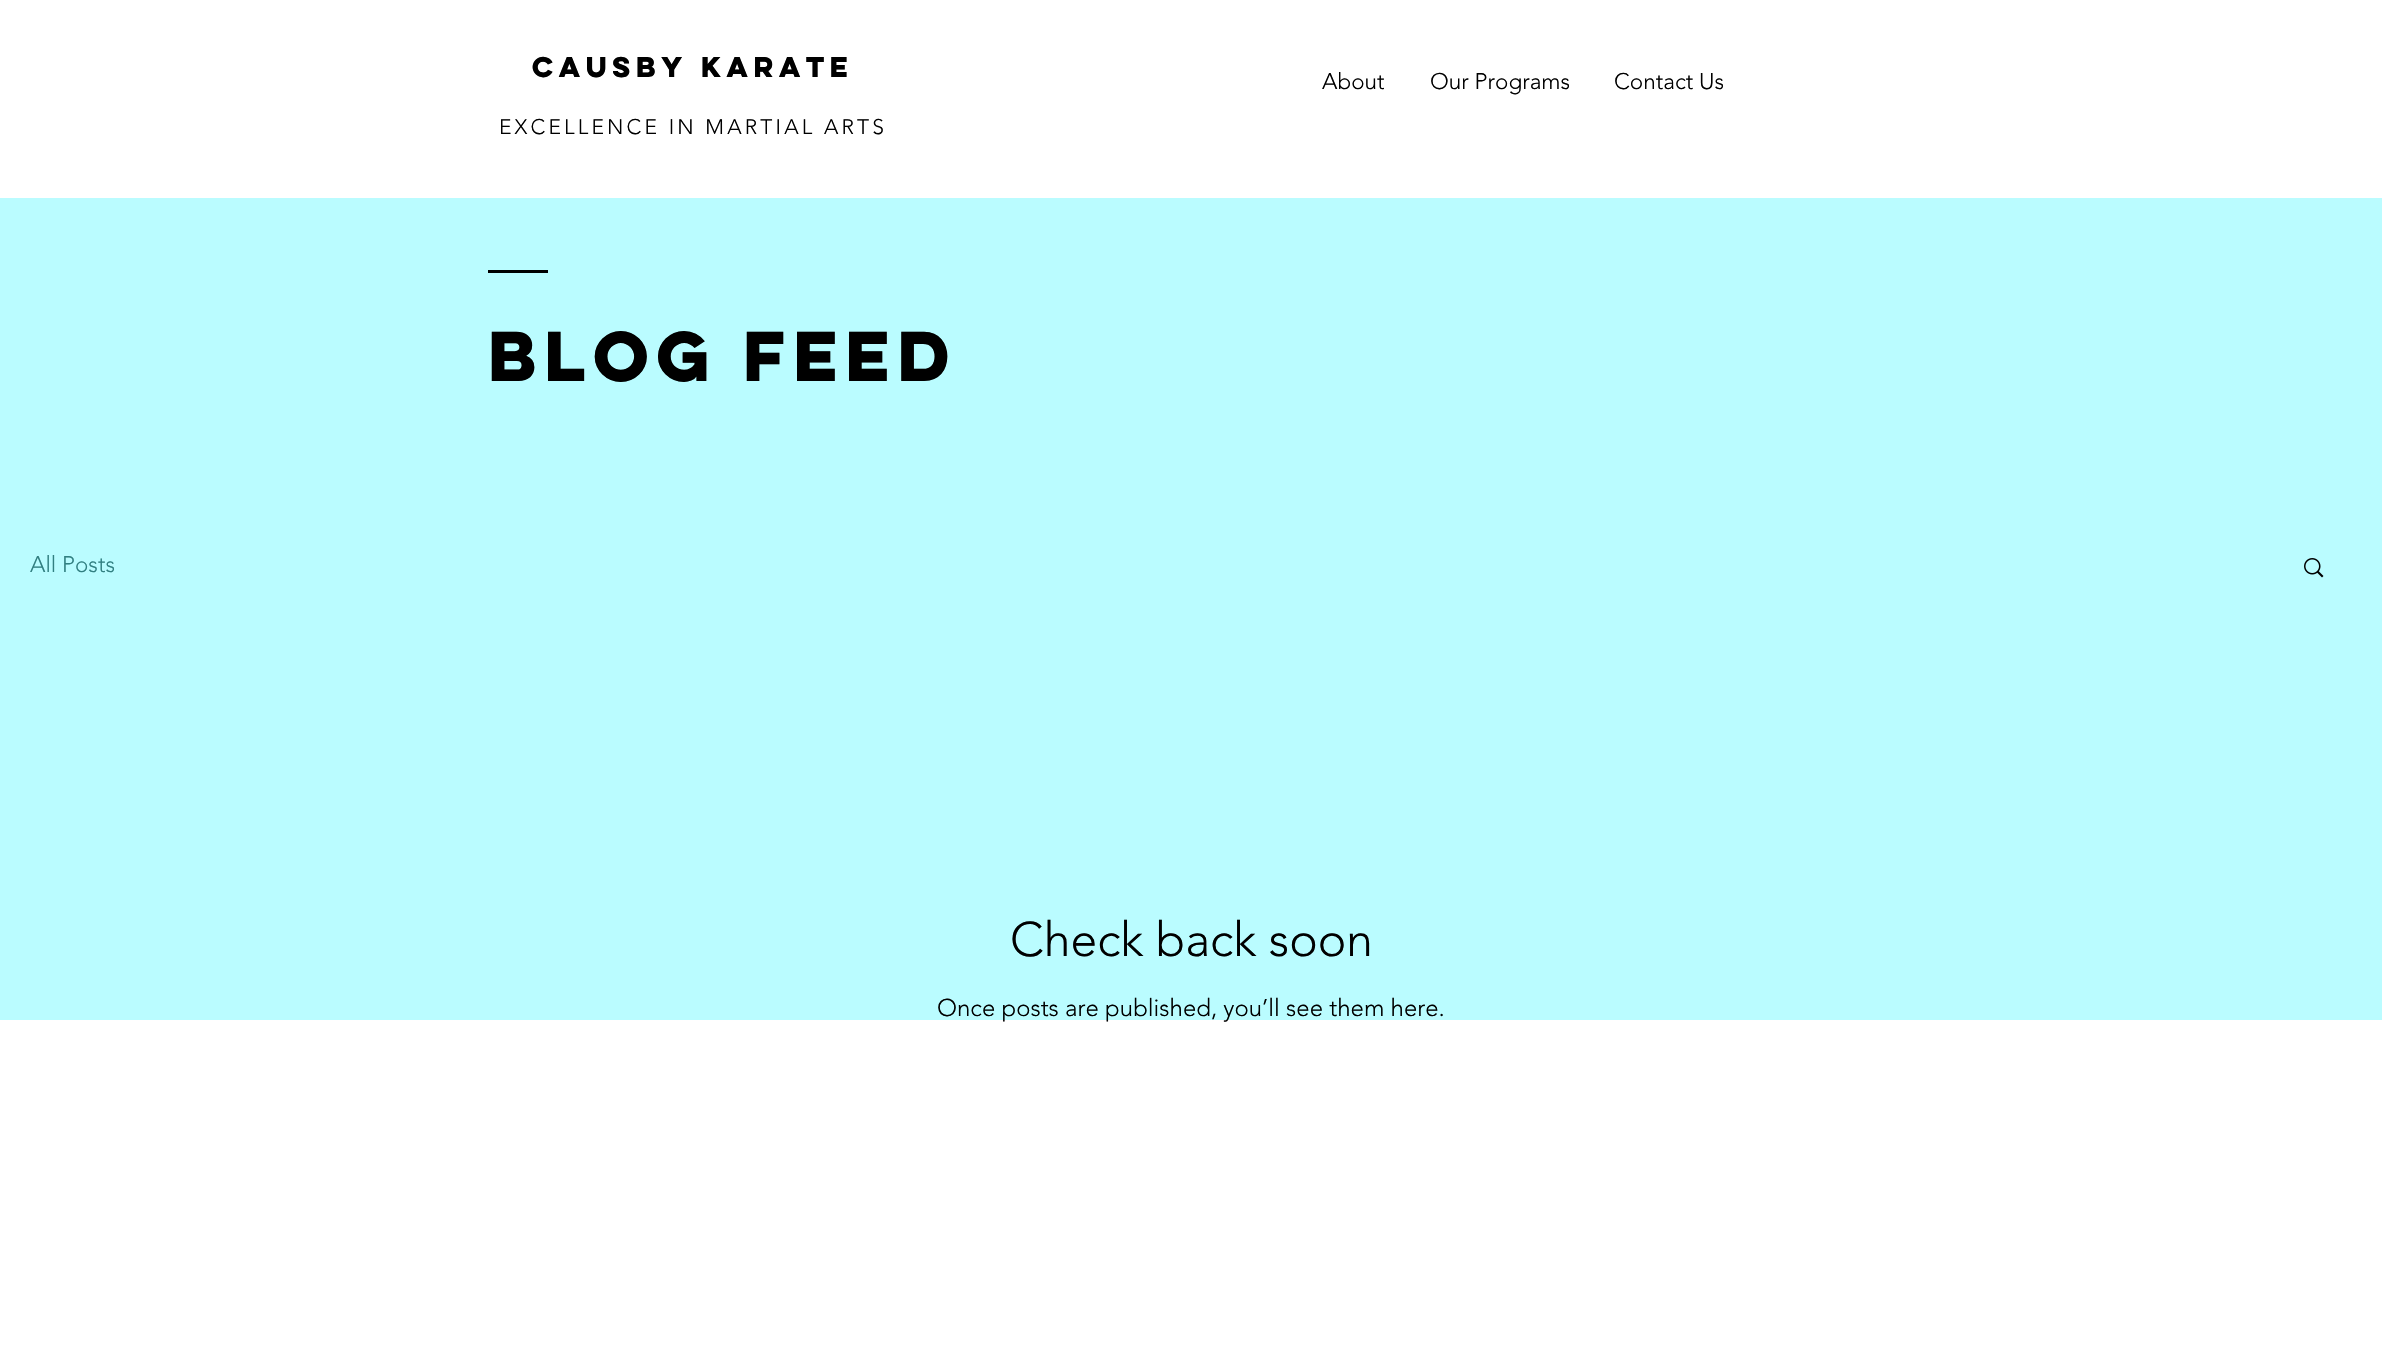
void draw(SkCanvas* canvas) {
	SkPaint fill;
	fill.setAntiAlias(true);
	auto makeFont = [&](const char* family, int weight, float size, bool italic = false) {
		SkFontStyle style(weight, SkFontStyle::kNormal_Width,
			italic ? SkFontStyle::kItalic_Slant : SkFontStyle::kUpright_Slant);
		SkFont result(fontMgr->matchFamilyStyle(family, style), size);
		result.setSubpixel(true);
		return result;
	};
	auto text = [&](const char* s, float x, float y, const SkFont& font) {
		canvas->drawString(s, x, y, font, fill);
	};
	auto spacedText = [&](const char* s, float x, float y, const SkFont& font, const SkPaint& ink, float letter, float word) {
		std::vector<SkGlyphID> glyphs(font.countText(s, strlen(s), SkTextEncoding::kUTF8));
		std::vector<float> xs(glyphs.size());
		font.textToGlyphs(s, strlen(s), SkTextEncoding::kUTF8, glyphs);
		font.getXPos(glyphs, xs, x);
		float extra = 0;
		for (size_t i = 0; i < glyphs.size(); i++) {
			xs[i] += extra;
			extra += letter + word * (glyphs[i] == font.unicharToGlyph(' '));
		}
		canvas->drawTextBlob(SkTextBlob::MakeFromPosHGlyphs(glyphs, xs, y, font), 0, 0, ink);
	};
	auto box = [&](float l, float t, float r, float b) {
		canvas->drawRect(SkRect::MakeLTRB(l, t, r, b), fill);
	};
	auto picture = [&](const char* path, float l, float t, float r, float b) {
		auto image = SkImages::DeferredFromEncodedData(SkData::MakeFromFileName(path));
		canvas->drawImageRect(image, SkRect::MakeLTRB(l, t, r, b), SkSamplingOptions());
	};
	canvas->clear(0xFFFFFFFF);
	fill.setColor(0xFFBAFCFF);
	box(0, 198, 2382, 1020);
	fill.setColor(0xFF000000);
	box(488, 270, 548, 273);
	picture("image0.png", 2304, 558, 2324, 578);
	auto font1 = makeFont("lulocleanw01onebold", 700, 25.5f);
	text("causby karate", 532, 77, font1);
	auto font2 = makeFont("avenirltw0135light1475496", 300, 22.5f);
	text("About", 1322, 89, font2);
	text("Our Programs", 1430, 89, font2);
	text("Contact Us", 1614, 89, font2);
	auto font3 = makeFont("avenirltw0135light1475496", 300, 21);
	spacedText("EXCELLENCE IN MARTIAL ARTS", 499, 134, font3, fill, 3.15f, 0);
	auto font4 = makeFont("lulocleanw01onebold", 700, 63);
	spacedText("BLOG FEED", 488, 381, font4, fill, -6.25f, 0);
	fill.setColor(0xFF317F81);
	text("All Posts", 30, 572, font2);
	auto font5 = makeFont("avenirltw0135light1475496", 300, 48);
	fill.setColor(0xFF000000);
	text("Check back soon", 1010, 956, font5);
	auto font6 = makeFont("avenirltw0135light1475496", 300, 24);
	text("Once posts are published, you’ll see them here.", 937, 1016, font6);
}
